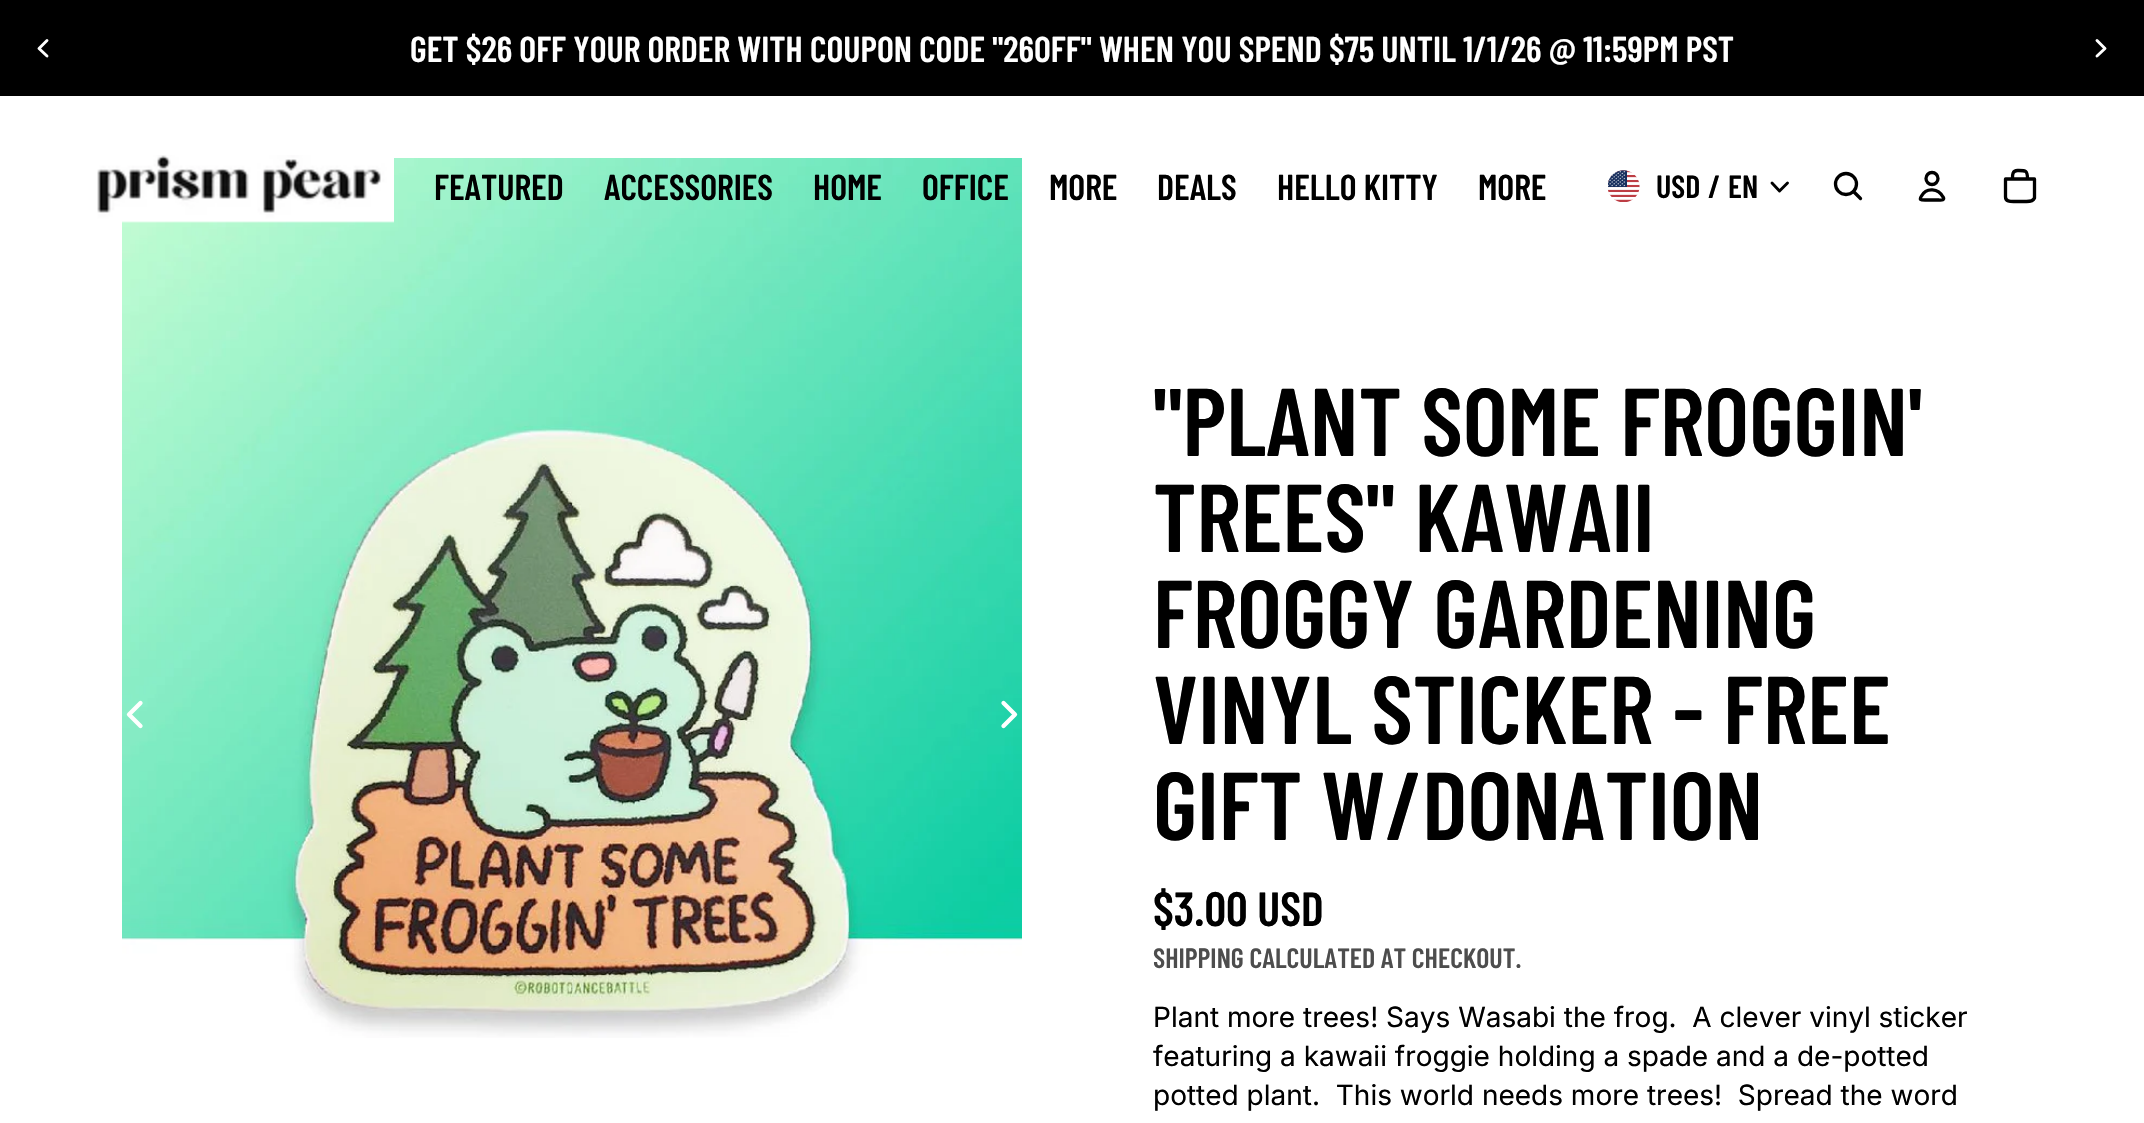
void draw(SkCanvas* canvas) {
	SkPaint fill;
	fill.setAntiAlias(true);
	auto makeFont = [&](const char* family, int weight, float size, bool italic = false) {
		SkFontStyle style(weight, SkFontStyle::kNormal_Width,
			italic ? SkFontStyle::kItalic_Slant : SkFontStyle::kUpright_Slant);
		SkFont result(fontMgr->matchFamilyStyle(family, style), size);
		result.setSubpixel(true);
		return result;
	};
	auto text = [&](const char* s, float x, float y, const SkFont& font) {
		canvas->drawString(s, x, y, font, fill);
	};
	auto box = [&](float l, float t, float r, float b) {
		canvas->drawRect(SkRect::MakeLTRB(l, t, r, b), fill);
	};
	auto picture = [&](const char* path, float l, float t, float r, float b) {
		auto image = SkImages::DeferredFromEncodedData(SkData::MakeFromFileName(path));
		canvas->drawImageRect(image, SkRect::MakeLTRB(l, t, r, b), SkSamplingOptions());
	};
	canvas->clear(0xFFFFFFFF);
	fill.setColor(0xFF000000);
	box(0, 0, 2144, 96);
	fill.setStyle(SkPaint::kStroke_Style);
	fill.setStrokeWidth(2.9f);
	fill.setStrokeCap(SkPaint::kRound_Cap);
	fill.setStrokeJoin(SkPaint::kRound_Join);
	fill.setColor(0xFFFFFFFF);
	canvas->drawPath(SkPathBuilder().moveTo(47, 40.5f).lineTo(39, 48.5f).lineTo(47, 56).detach(), fill);
	canvas->drawPath(SkPathBuilder().moveTo(2097, 40.5f).lineTo(2105, 48.5f).lineTo(2097, 56).detach(), fill);
	picture("image2.png", 122, 158, 1022, 1038);
	picture("image0.png", 97, 155, 394, 223);
	picture("image1.png", 1608, 170, 1640, 202);
	fill.setColor(0xFF000000);
	canvas->drawPath(SkPathBuilder().moveTo(1787.5f, 183).lineTo(1779.5f, 191).lineTo(1772, 183).detach(), fill);
	fill.setStrokeWidth(3.3f);
	fill.setStrokeCap(SkPaint::kButt_Cap);
	fill.setStrokeJoin(SkPaint::kMiter_Join);
	canvas->drawCircle(1846, 184, 10.5f, fill);
	fill.setStrokeCap(SkPaint::kRound_Cap);
	fill.setStrokeJoin(SkPaint::kRound_Join);
	canvas->drawPath(SkPathBuilder().moveTo(1853.5f, 191.5f).lineTo(1860.5f, 198.5f).detach(), fill);
	fill.setStrokeCap(SkPaint::kButt_Cap);
	fill.setStrokeJoin(SkPaint::kMiter_Join);
	canvas->drawCircle(1932, 178.5f, 6, fill);
	fill.setStrokeCap(SkPaint::kRound_Cap);
	fill.setStrokeJoin(SkPaint::kRound_Join);
	canvas->drawPath(SkPathBuilder().moveTo(1921.5f, 196).cubicTo(1919, 200, 1920.5f, 200, 1925, 200).lineTo(1939, 200).cubicTo(1939.5f, 200, 1943, 200.5f, 1943.5f, 199).cubicTo(1944, 198.5f, 1943.5f, 197.5f, 1943, 197).cubicTo(1938.5f, 188.5f, 1926.5f, 187, 1921.5f, 196).detach(), fill);
	canvas->drawPath(SkPathBuilder().moveTo(2005.5f, 179).lineTo(2034.5f, 179).lineTo(2034.5f, 198).cubicTo(2033, 201.5f, 2029.5f, 201.5f, 2026.5f, 201.5f).lineTo(2013.5f, 201.5f).cubicTo(2010, 201.5f, 2005.5f, 201.5f, 2005.5f, 197).close().moveTo(2017.5f, 170.5f).cubicTo(2025.5f, 170.5f, 2027.5f, 170, 2027.5f, 179).lineTo(2012.5f, 179).cubicTo(2012.5f, 175.5f, 2012, 170.5f, 2017.5f, 170.5f).detach(), fill);
	fill.setStrokeWidth(4.3f);
	fill.setColor(0xFFFFFFFF);
	canvas->drawPath(SkPathBuilder().moveTo(140.5f, 703).lineTo(129, 714.5f).lineTo(140.5f, 726).detach(), fill);
	canvas->drawPath(SkPathBuilder().moveTo(1003.5f, 703).lineTo(1015, 714.5f).lineTo(1003.5f, 726).detach(), fill);
	auto font1 = makeFont("Barlow Condensed", 600, 36);
	fill.setStyle(SkPaint::kFill_Style);
	text("GET $26 OFF YOUR ORDER WITH COUPON CODE \"26OFF\" WHEN YOU SPEND $75 UNTIL 1/1/26 @ 11:59PM PST", 410, 62, font1);
	fill.setColor(0xFF000000);
	text("FEATURED", 434, 200, font1);
	text("ACCESSORIES", 604, 200, font1);
	text("HOME", 813, 200, font1);
	text("OFFICE", 922, 200, font1);
	text("MORE", 1049, 200, font1);
	text("DEALS", 1157, 200, font1);
	text("HELLO KITTY", 1277, 200, font1);
	text("MORE", 1478, 200, font1);
	auto font2 = makeFont("Barlow Condensed", 600, 32);
	text("USD", 1656, 198, font2);
	text("/", 1708, 198, font2);
	text("EN", 1728, 198, font2);
	auto font3 = makeFont("Barlow Condensed", 600, 96);
	text("\"PLANT SOME FROGGIN'", 1153, 456, font3);
	text("TREES\" KAWAII", 1153, 552, font3);
	text("FROGGY GARDENING", 1153, 648, font3);
	text("VINYL STICKER - FREE", 1153, 744, font3);
	text("GIFT W/DONATION", 1153, 840, font3);
	auto font4 = makeFont("Barlow Condensed", 600, 48);
	text("$3.00 USD", 1153, 926, font4);
	auto font5 = makeFont("Barlow Condensed", 600, 28);
	fill.setColor(0xFF4D4D4D);
	text("SHIPPING CALCULATED AT CHECKOUT.", 1153, 968, font5);
	auto font6 = makeFont("Inter", 400, 28);
	fill.setColor(0xFF000000);
	text("Plant more trees! Says Wasabi the frog.  A clever vinyl sticker", 1153, 1027, font6);
	text("featuring a kawaii froggie holding a spade and a de-potted", 1153, 1066, font6);
	text("potted plant.  This world needs more trees!  Spread the word", 1153, 1105, font6);
}
